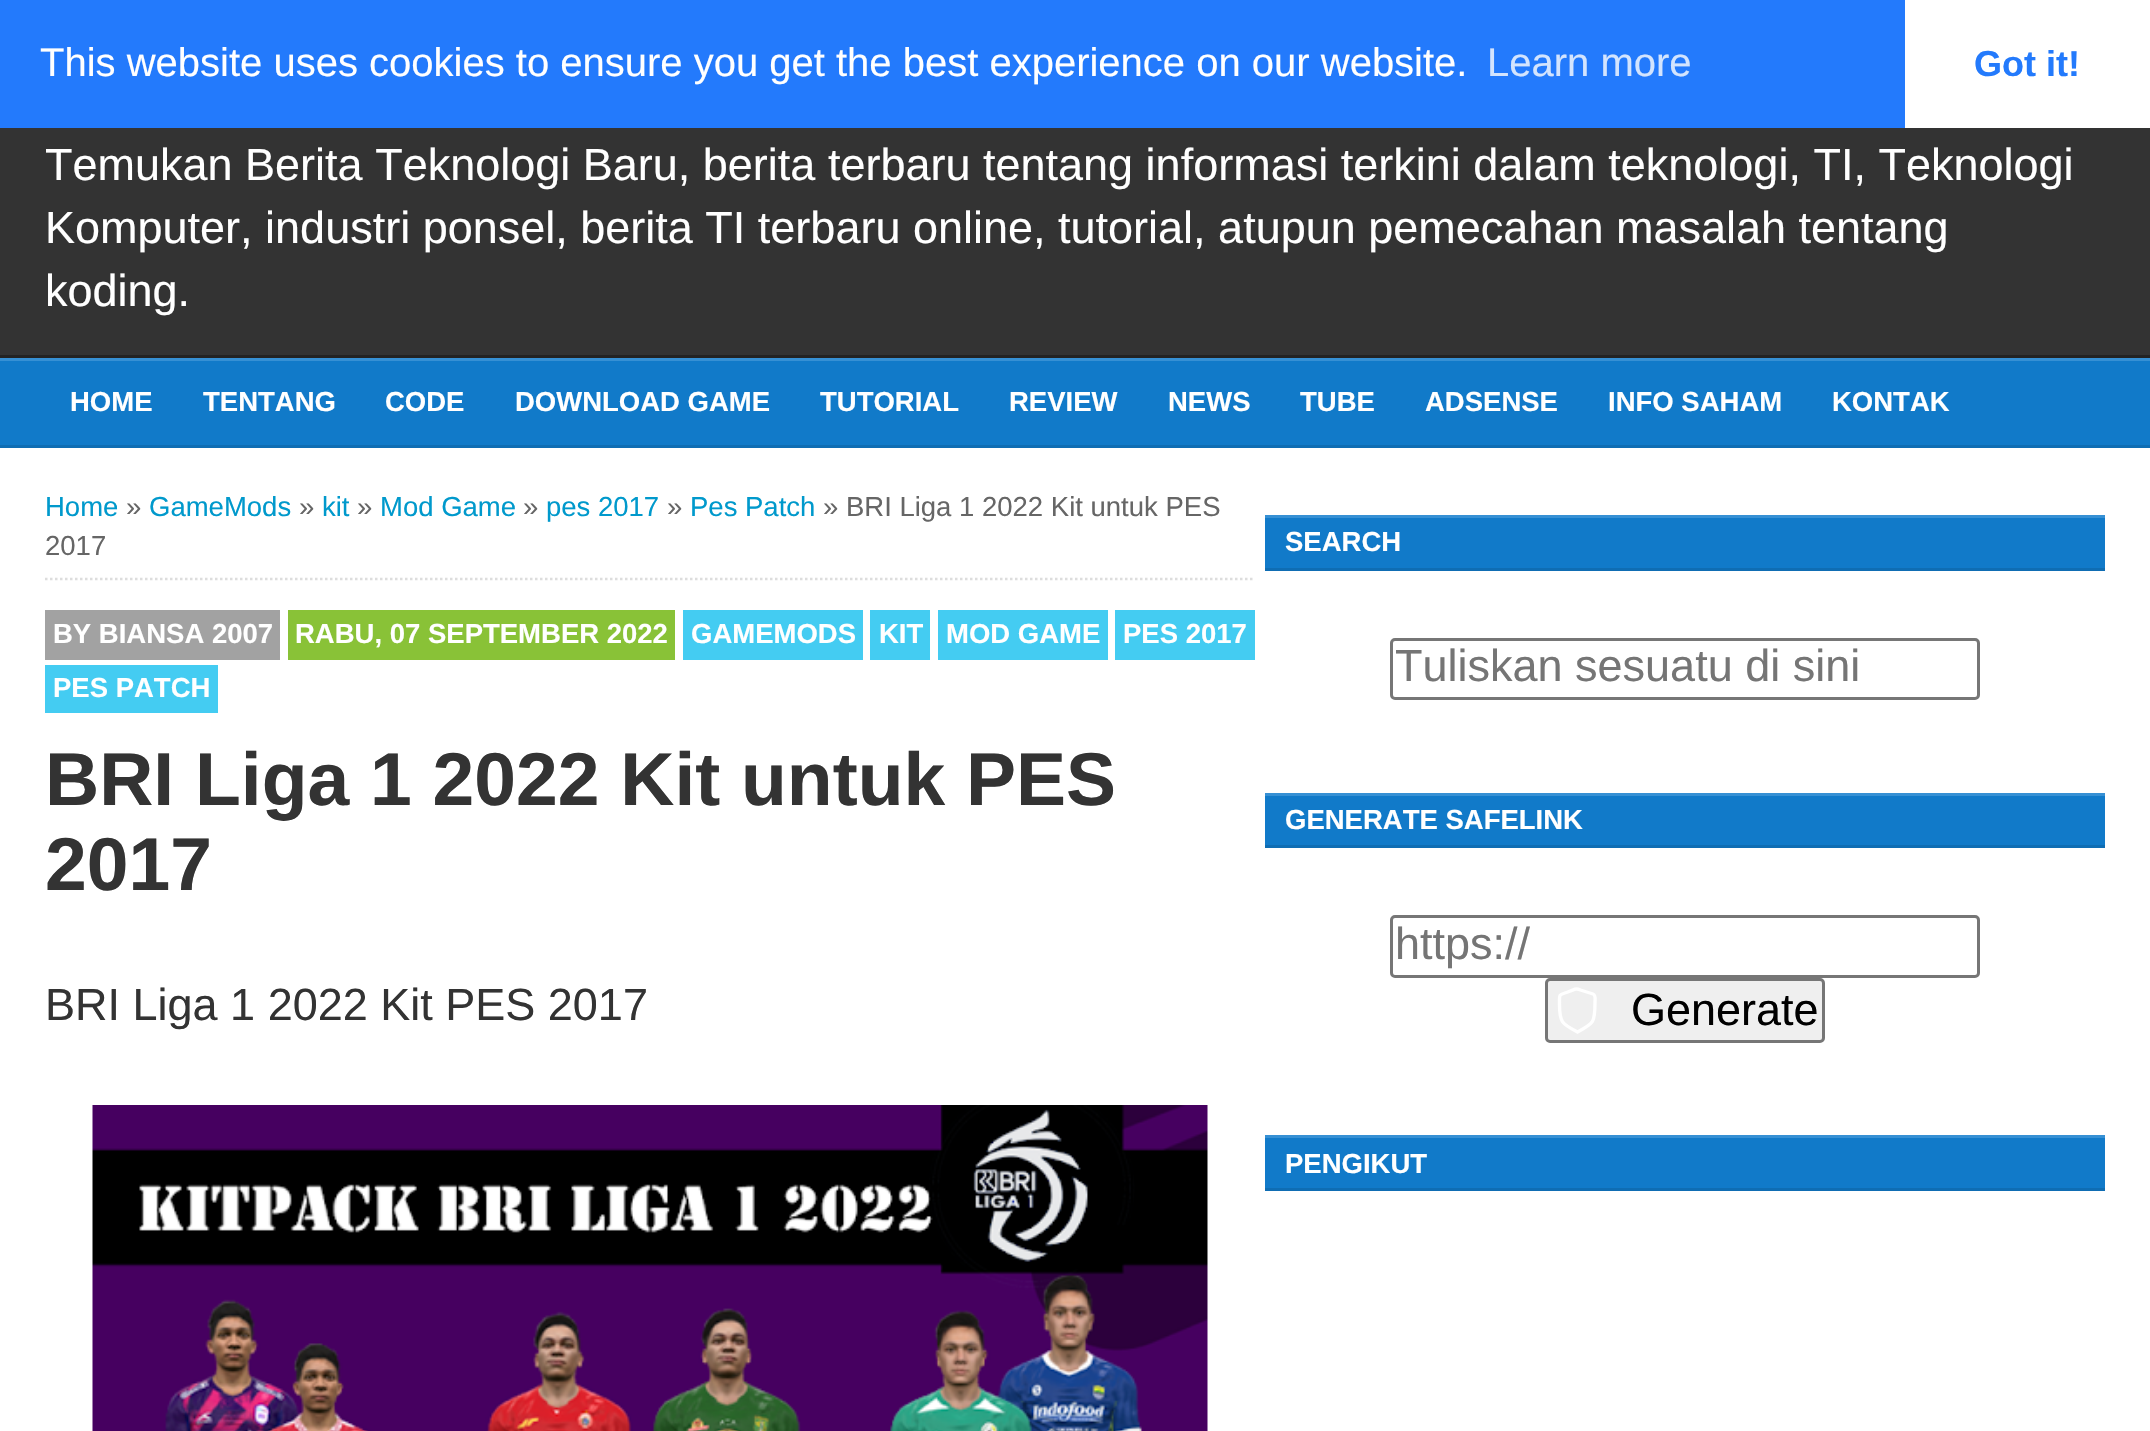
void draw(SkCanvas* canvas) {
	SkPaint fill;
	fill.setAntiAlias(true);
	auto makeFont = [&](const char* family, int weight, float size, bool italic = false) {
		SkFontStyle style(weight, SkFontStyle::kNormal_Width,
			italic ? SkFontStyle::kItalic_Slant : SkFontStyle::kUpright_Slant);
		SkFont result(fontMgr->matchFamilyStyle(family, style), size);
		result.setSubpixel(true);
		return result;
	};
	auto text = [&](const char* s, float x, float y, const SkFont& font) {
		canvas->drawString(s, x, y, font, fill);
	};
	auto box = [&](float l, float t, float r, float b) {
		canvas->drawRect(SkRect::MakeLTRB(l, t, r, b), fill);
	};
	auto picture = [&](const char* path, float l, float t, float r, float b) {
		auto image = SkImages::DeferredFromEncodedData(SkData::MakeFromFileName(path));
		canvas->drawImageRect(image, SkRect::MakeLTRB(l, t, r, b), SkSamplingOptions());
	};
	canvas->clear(0xFFFFFFFF);
	fill.setColor(0xFF237AFC);
	box(0, 0, 1905, 128);
	fill.setColor(0xFF333333);
	box(0, 128, 2150, 355);
	fill.setColor(0xFF232323);
	box(0, 355, 2150, 358);
	fill.setColor(0xFF117AC9);
	box(0, 361, 2150, 445);
	fill.setColor(0xFF3690D4);
	box(0, 358, 2150, 361);
	fill.setColor(0xFF0F6DB3);
	box(0, 445, 2150, 448);
	fill.setStyle(SkPaint::kStroke_Style);
	fill.setStrokeWidth(2.5f);
	fill.setColor(0xFFDDDDDD);
	fill.setPathEffect(SkDashPathEffect::Make({{2.5f, 2.5f}}, 0));
	canvas->drawPath(SkPathBuilder().moveTo(45, 579).lineTo(1255, 579).detach(), fill);
	fill.setPathEffect(nullptr);
	fill.setStyle(SkPaint::kFill_Style);
	fill.setColor(0xFFA2A2A2);
	box(45, 610, 280, 660);
	fill.setColor(0xFF89C237);
	box(288, 610, 675, 660);
	fill.setColor(0xFF44CCF2);
	box(683, 610, 863, 660);
	box(870, 610, 930, 660);
	box(938, 610, 1108, 660);
	box(1115, 610, 1255, 660);
	box(45, 665, 218, 713);
	picture("image0.png", 92, 1105, 1208, 1431);
	fill.setColor(0xFF117AC9);
	box(1265, 518, 2105, 568);
	fill.setColor(0xFF3690D4);
	box(1265, 515, 2105, 518);
	fill.setColor(0xFF0F6DB3);
	box(1265, 568, 2105, 571);
	fill.setStyle(SkPaint::kStroke_Style);
	fill.setStrokeWidth(3);
	fill.setColor(0xFF767676);
	canvas->drawRoundRect(SkRect::MakeLTRB(1391.5f, 639.5f, 1978.5f, 698.5f), 3.5f, 3.5f, fill);
	fill.setStyle(SkPaint::kFill_Style);
	fill.setColor(0xFF117AC9);
	box(1265, 796, 2105, 845);
	fill.setColor(0xFF3690D4);
	box(1265, 793, 2105, 796);
	fill.setColor(0xFF0F6DB3);
	box(1265, 845, 2105, 848);
	fill.setStyle(SkPaint::kStroke_Style);
	fill.setColor(0xFF767676);
	canvas->drawRoundRect(SkRect::MakeLTRB(1391.5f, 916.5f, 1978.5f, 976.5f), 3.5f, 3.5f, fill);
	fill.setStyle(SkPaint::kFill_Style);
	fill.setColor(0xFFEFEFEF);
	canvas->drawRoundRect(SkRect::MakeLTRB(1546.5f, 979.5f, 1823.5f, 1041.5f), 3.5f, 3.5f, fill);
	fill.setStyle(SkPaint::kStroke_Style);
	fill.setColor(0xFF767676);
	canvas->drawRoundRect(SkRect::MakeLTRB(1546.5f, 979.5f, 1823.5f, 1041.5f), 3.5f, 3.5f, fill);
	fill.setStrokeWidth(3.4f);
	fill.setColor(0xFFFFFFFF);
	canvas->drawPath(SkPathBuilder().moveTo(1593, 994).cubicTo(1596, 995, 1595, 1000, 1595, 1002).cubicTo(1595, 1022.5f, 1594, 1023, 1577.5f, 1032).cubicTo(1562.5f, 1024, 1559.5f, 1023, 1559.5f, 1004.5f).cubicTo(1559.5f, 993, 1558.5f, 995.5f, 1569, 991.5f).cubicTo(1575, 989.5f, 1575.5f, 988, 1580.5f, 990).close().detach(), fill);
	fill.setStyle(SkPaint::kFill_Style);
	fill.setColor(0xFF117AC9);
	box(1265, 1138, 2105, 1188);
	fill.setColor(0xFF3690D4);
	box(1265, 1135, 2105, 1138);
	fill.setColor(0xFF0F6DB3);
	box(1265, 1188, 2105, 1191);
	auto font1 = makeFont("Liberation Sans", 400, 40);
	fill.setColor(0xFFFFFFFF);
	text("This website uses cookies to ensure you get the best experience on our website.", 40, 76, font1);
	fill.setColor(0xFFD3E4FE);
	text("Learn more", 1487, 76, font1);
	auto font2 = makeFont("Liberation Sans", 700, 36);
	fill.setColor(0xFF237AFC);
	text("Got it!", 1974, 76, font2);
	auto font3 = makeFont("Liberation Sans", 400, 45);
	fill.setColor(0xFFFFFFFF);
	text("Temukan Berita Teknologi Baru, berita terbaru tentang informasi terkini dalam teknologi, TI, Teknologi", 45, 180, font3);
	text("Komputer, industri ponsel, berita TI terbaru online, tutorial, atupun pemecahan masalah tentang", 45, 243, font3);
	text("koding.", 45, 306, font3);
	auto font4 = makeFont("Liberation Sans", 700, 27.5f);
	text("HOME", 70, 411, font4);
	text("TENTANG", 203, 411, font4);
	text("CODE", 385, 411, font4);
	text("DOWNLOAD GAME", 515, 411, font4);
	text("TUTORIAL", 820, 411, font4);
	text("REVIEW", 1009, 411, font4);
	text("NEWS", 1168, 411, font4);
	text("TUBE", 1300, 411, font4);
	text("ADSENSE", 1425, 411, font4);
	text("INFO SAHAM", 1608, 411, font4);
	text("KONTAK", 1832, 411, font4);
	auto font5 = makeFont("Liberation Sans", 400, 27.5f);
	fill.setColor(0xFF0099CC);
	text("Home", 45, 516, font5);
	fill.setColor(0xFF666666);
	text("»", 126, 516, font5);
	fill.setColor(0xFF0099CC);
	text("GameMods", 149, 516, font5);
	fill.setColor(0xFF666666);
	text("»", 299, 516, font5);
	fill.setColor(0xFF0099CC);
	text("kit", 322, 516, font5);
	fill.setColor(0xFF666666);
	text("»", 357, 516, font5);
	fill.setColor(0xFF0099CC);
	text("Mod Game", 380, 516, font5);
	fill.setColor(0xFF666666);
	text("»", 523, 516, font5);
	fill.setColor(0xFF0099CC);
	text("pes 2017", 546, 516, font5);
	fill.setColor(0xFF666666);
	text("»", 667, 516, font5);
	fill.setColor(0xFF0099CC);
	text("Pes Patch", 690, 516, font5);
	fill.setColor(0xFF666666);
	text("» BRI Liga 1 2022 Kit untuk PES", 823, 516, font5);
	text("2017", 45, 555, font5);
	fill.setColor(0xFFFFFFFF);
	text("BY BIANSA 2007", 53, 643, font4);
	text("RABU, 07 SEPTEMBER 2022", 295, 643, font4);
	text("GAMEMODS", 691, 643, font4);
	text("KIT", 879, 643, font4);
	text("MOD GAME", 946, 643, font4);
	text("PES 2017", 1123, 643, font4);
	text("PES PATCH", 53, 697, font4);
	auto font6 = makeFont("Liberation Sans", 700, 75);
	fill.setColor(0xFF333333);
	text("BRI Liga 1 2022 Kit untuk PES", 45, 805, font6);
	text("2017", 45, 890, font6);
	text("BRI Liga 1 2022 Kit PES 2017", 45, 1020, font3);
	fill.setColor(0xFFFFFFFF);
	text("SEARCH", 1285, 551, font4);
	fill.setColor(0xFF757575);
	text("Tuliskan sesuatu di sini", 1395, 681, font3);
	fill.setColor(0xFFFFFFFF);
	text("GENERATE SAFELINK", 1285, 829, font4);
	fill.setColor(0xFF757575);
	text("https://", 1395, 959, font3);
	fill.setColor(0xFF000000);
	text("Generate", 1631, 1025, font3);
	fill.setColor(0xFFFFFFFF);
	text("PENGIKUT", 1285, 1173, font4);
}
